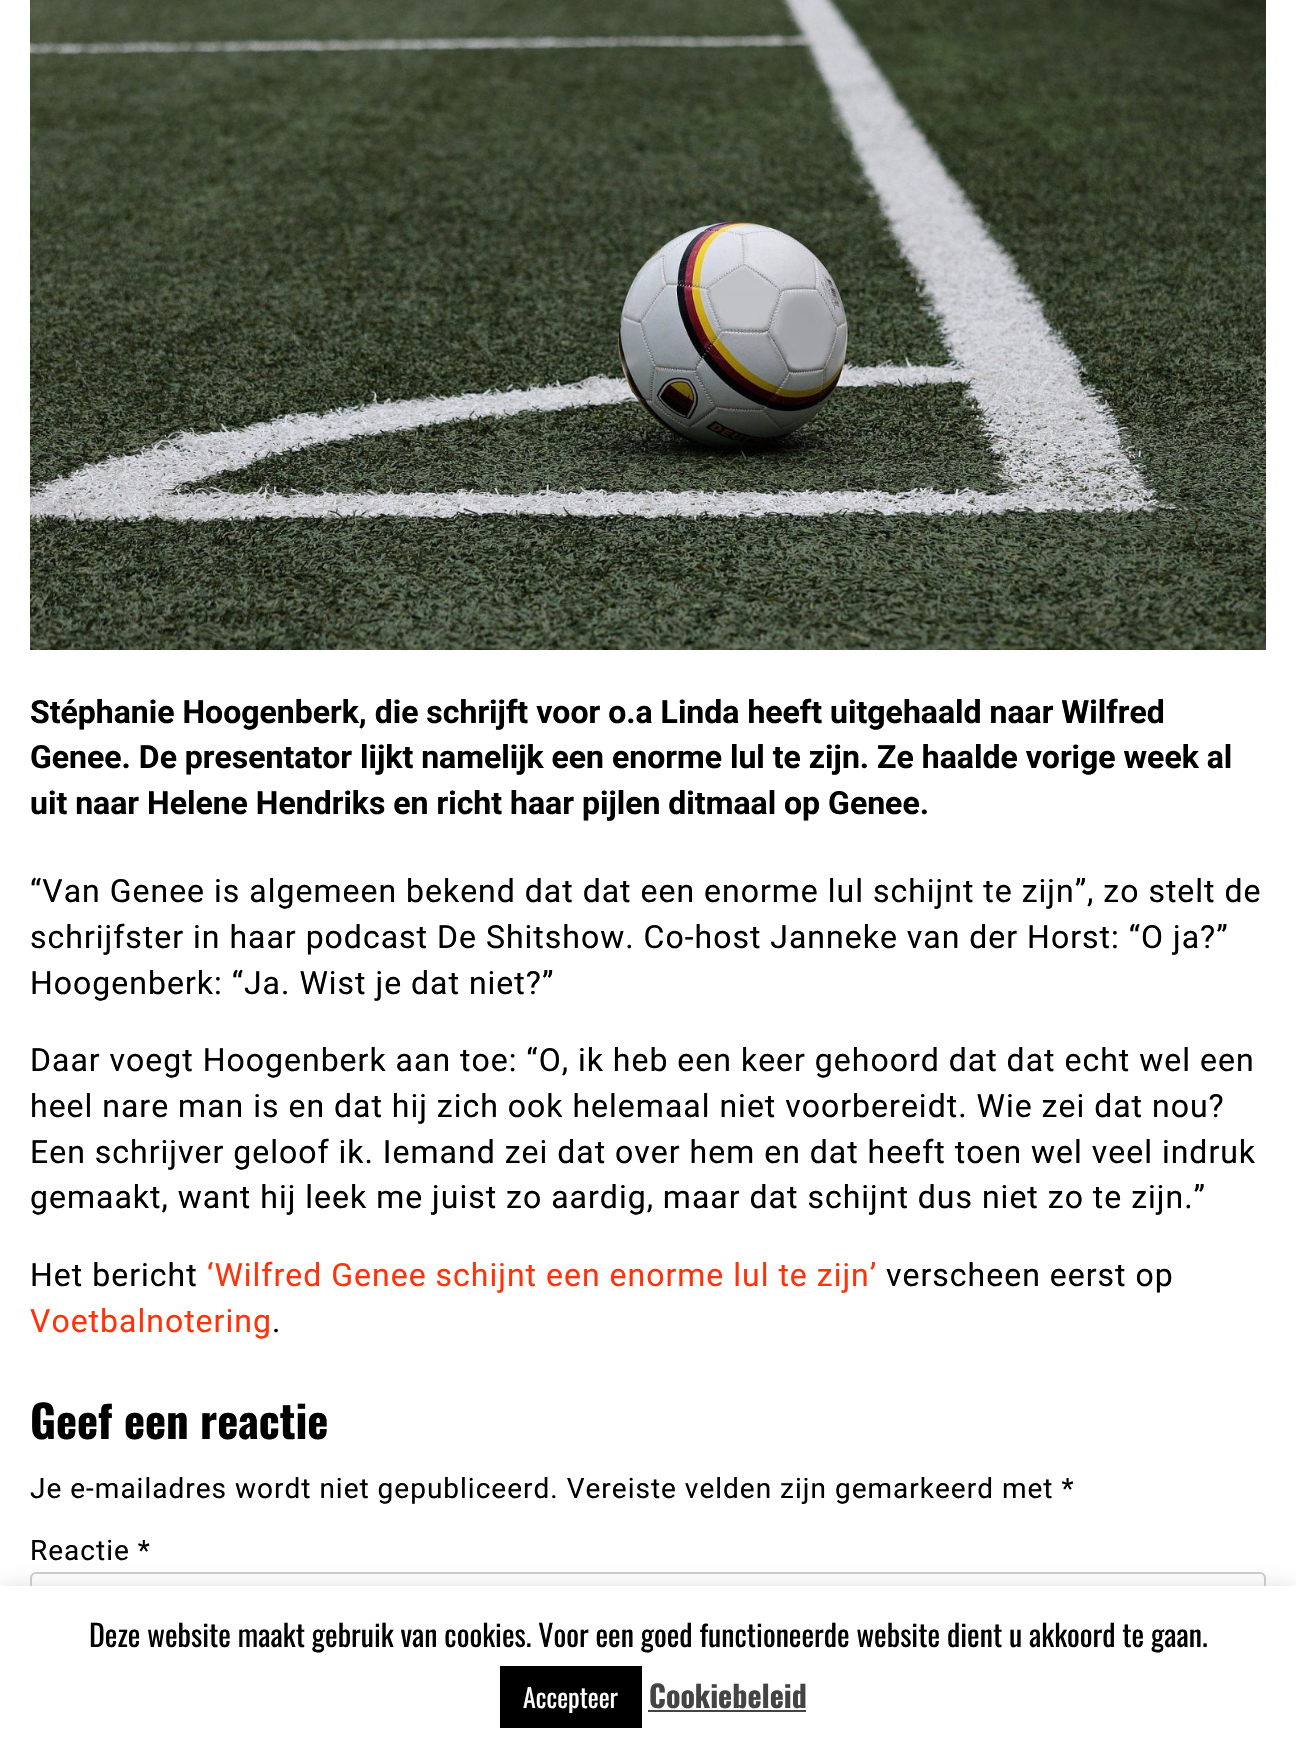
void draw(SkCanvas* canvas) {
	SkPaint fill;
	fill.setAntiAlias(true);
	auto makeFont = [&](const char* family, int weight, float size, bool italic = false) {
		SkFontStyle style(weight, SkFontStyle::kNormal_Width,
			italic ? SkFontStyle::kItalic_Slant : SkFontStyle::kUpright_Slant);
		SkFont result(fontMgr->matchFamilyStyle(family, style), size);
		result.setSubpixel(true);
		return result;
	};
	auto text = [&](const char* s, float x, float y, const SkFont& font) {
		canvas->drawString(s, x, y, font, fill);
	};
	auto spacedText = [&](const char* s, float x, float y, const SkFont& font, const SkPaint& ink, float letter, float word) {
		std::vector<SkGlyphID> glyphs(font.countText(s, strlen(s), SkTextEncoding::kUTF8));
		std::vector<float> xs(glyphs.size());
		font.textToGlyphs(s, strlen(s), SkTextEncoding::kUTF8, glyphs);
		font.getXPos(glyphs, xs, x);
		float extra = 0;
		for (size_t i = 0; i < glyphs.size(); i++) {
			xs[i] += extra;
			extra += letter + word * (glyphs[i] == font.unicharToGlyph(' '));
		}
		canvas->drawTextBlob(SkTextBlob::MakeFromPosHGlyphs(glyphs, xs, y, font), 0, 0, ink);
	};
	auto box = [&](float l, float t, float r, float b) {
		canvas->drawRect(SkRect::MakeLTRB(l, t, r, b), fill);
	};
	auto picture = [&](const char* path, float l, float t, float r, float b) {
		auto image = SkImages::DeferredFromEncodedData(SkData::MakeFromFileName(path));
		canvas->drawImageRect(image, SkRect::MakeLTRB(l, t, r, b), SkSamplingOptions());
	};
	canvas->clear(0xFFFFFFFF);
	picture("image0.png", 30, 0, 1266, 650);
	fill.setStyle(SkPaint::kStroke_Style);
	fill.setStrokeWidth(2);
	fill.setColor(0xFFCCCCCC);
	canvas->drawRoundRect(SkRect::MakeLTRB(31, 1573, 1265, 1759), 5, 5, fill);
	fill.setStyle(SkPaint::kFill_Style);
	fill.setColor(0x4DACABAB);
	fill.setMaskFilter(SkMaskFilter::MakeBlur(kNormal_SkBlurStyle, 10));
	canvas->drawRect(SkRect::MakeLTRB(0, 1584, 1296, 1750), fill);
	fill.setMaskFilter(nullptr);
	fill.setColor(0xFFFFFFFF);
	box(0, 1586, 1296, 1752);
	fill.setColor(0xFF000000);
	box(500, 1666, 642, 1728);
	fill.setColor(0xFF444444);
	box(648, 1710, 806, 1712);
	auto font1 = makeFont("Roboto", 700, 32);
	fill.setColor(0xFF000000);
	text("Stéphanie Hoogenberk, die schrijft voor o.a Linda heeft uitgehaald naar Wilfred", 30, 723, font1);
	text("Genee. De presentator lijkt namelijk een enorme lul te zijn. Ze haalde vorige week al", 30, 768, font1);
	text("uit naar Helene Hendriks en richt haar pijlen ditmaal op Genee.", 30, 814, font1);
	auto font2 = makeFont("Roboto", 400, 32);
	spacedText("“Van Genee is algemeen bekend dat dat een enorme lul schijnt te zijn”, zo stelt de", 30, 902, font2, fill, 1, 0);
	spacedText("schrijfster in haar podcast De Shitshow. Co-host Janneke van der Horst: “O ja?”", 30, 948, font2, fill, 1, 0);
	spacedText("Hoogenberk: “Ja. Wist je dat niet?”", 30, 994, font2, fill, 1, 0);
	spacedText("Daar voegt Hoogenberk aan toe: “O, ik heb een keer gehoord dat dat echt wel een", 30, 1071, font2, fill, 1, 0);
	spacedText("heel nare man is en dat hij zich ook helemaal niet voorbereidt. Wie zei dat nou?", 30, 1117, font2, fill, 1, 0);
	spacedText("Een schrijver geloof ik. Iemand zei dat over hem en dat heeft toen wel veel indruk", 30, 1163, font2, fill, 1, 0);
	spacedText("gemaakt, want hij leek me juist zo aardig, maar dat schijnt dus niet zo te zijn.”", 30, 1208, font2, fill, 1, 0);
	spacedText("Het bericht", 30, 1286, font2, fill, 1, 0);
	fill.setColor(0xFFFF3209);
	spacedText("‘Wilfred Genee schijnt een enorme lul te zijn’", 207, 1286, font2, fill, 1, 0);
	fill.setColor(0xFF000000);
	spacedText("verscheen eerst op", 886, 1286, font2, fill, 1, 0);
	fill.setColor(0xFFFF3209);
	spacedText("Voetbalnotering", 30, 1332, font2, fill, 1, 0);
	fill.setColor(0xFF000000);
	spacedText(".", 272, 1332, font2, fill, 1, 0);
	auto font3 = makeFont("Oswald", 700, 44.75f);
	text("Geef een reactie", 30, 1439, font3);
	auto font4 = makeFont("Roboto", 400, 28);
	spacedText("Je e-mailadres wordt niet gepubliceerd. Vereiste velden zijn gemarkeerd met *", 30, 1498, font4, fill, 1, 0);
	spacedText("Reactie *", 30, 1560, font4, fill, 1, 0);
	auto font5 = makeFont("Oswald", 400, 30);
	text("Deze website maakt gebruik van cookies. Voor een goed functioneerde website dient u akkoord te gaan.", 89, 1647, font5);
	auto font6 = makeFont("Oswald", 400, 26);
	fill.setColor(0xFFFFFFFF);
	text("Accepteer", 523, 1708, font6);
	auto font7 = makeFont("Oswald", 700, 30);
	fill.setColor(0xFF444444);
	text("Cookiebeleid", 649, 1708, font7);
}
